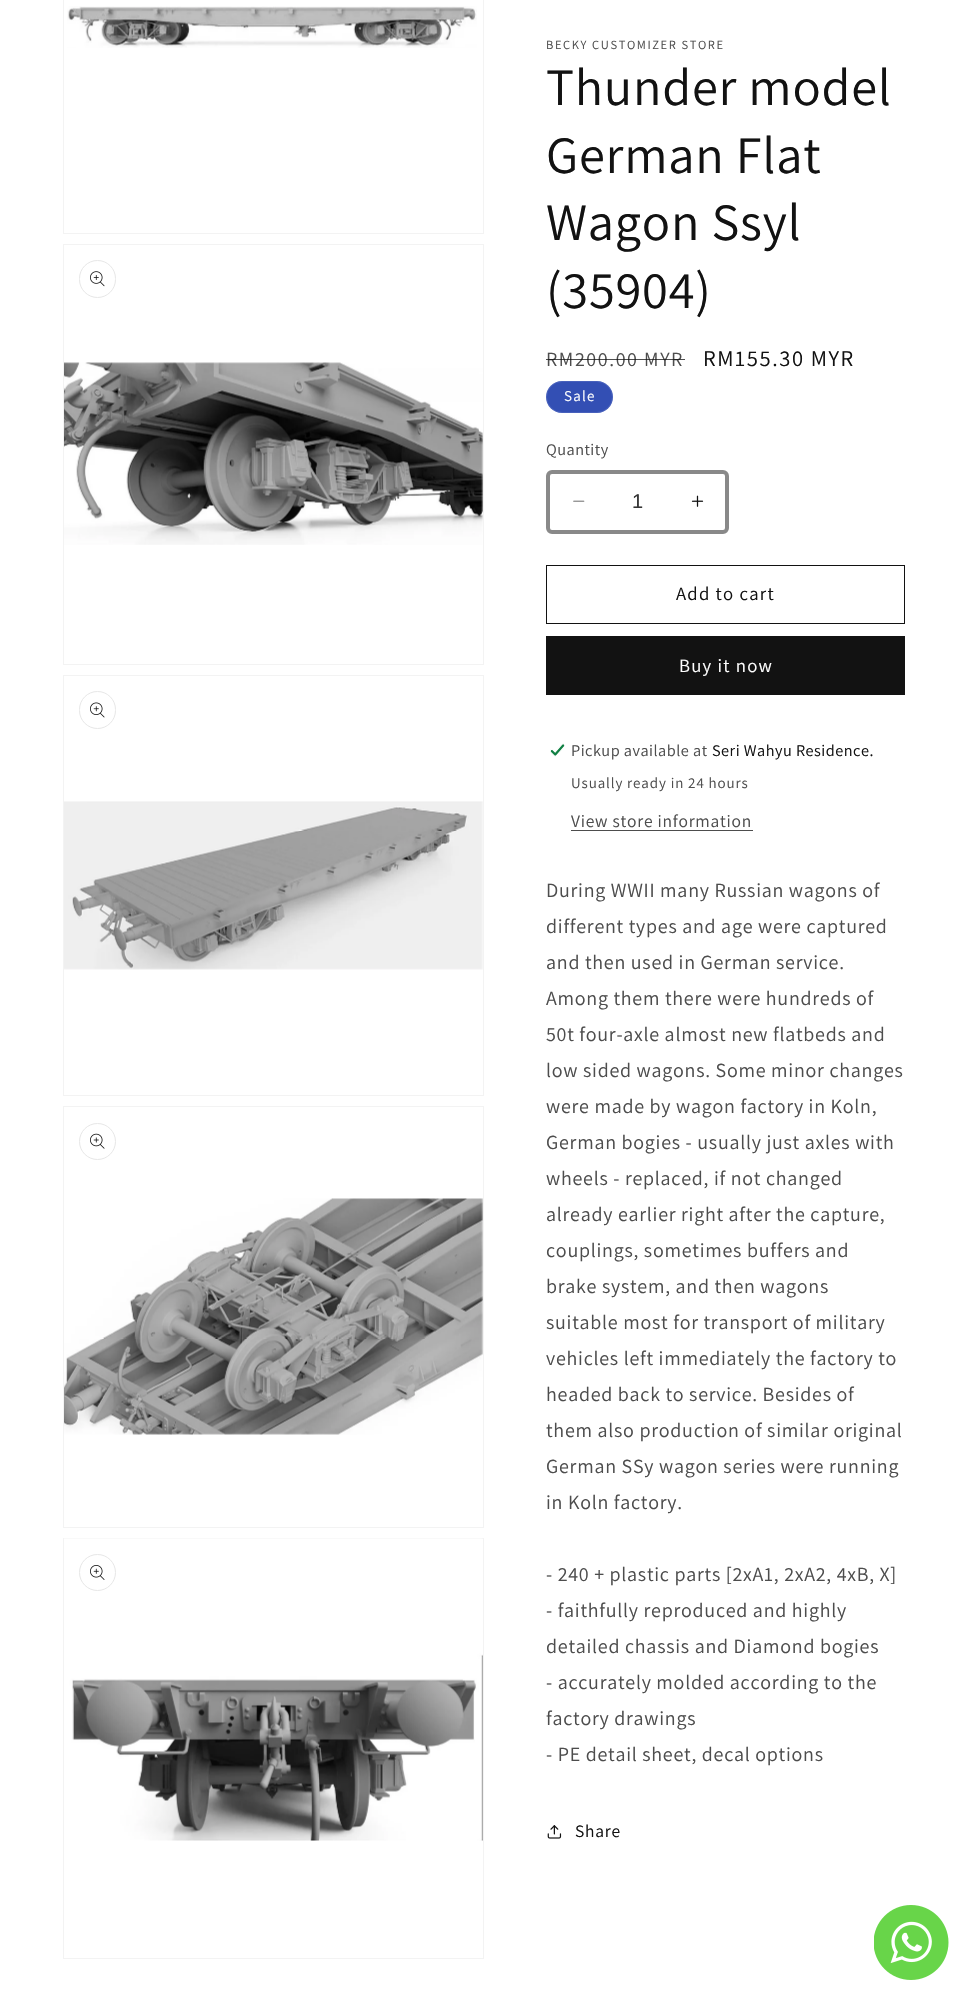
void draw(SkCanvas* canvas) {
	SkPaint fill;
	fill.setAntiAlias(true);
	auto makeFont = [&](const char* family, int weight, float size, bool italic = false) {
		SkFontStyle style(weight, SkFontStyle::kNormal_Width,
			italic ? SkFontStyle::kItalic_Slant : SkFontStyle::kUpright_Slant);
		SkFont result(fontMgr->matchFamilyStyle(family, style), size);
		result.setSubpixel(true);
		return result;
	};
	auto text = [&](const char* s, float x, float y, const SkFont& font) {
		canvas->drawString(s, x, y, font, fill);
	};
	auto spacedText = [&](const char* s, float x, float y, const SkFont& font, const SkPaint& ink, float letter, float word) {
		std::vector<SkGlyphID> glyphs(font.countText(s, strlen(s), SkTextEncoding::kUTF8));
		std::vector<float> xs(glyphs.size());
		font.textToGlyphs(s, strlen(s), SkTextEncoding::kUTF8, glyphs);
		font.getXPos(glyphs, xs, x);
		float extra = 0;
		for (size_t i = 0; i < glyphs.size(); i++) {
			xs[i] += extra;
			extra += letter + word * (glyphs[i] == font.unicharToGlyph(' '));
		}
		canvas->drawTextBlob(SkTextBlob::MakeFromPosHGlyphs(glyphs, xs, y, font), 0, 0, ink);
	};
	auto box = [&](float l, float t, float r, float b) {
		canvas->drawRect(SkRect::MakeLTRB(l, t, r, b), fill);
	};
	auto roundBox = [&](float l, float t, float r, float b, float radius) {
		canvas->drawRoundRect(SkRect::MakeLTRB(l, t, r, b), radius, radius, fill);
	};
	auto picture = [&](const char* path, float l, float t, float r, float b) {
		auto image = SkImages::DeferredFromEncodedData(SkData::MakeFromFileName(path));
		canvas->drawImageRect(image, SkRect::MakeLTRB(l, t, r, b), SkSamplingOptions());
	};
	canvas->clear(0xFFFFFFFF);
	fill.setStyle(SkPaint::kStroke_Style);
	fill.setStrokeWidth(1);
	fill.setColor(0xFFF3F3F3);
	canvas->drawRect(SkRect::MakeLTRB(63.5f, -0.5f, 483.5f, 233.5f), fill);
	picture("image0.png", 67, 6, 477, 48);
	canvas->drawRect(SkRect::MakeLTRB(63.5f, 244.5f, 483.5f, 664.5f), fill);
	fill.setColor(0xFFE7E7E7);
	canvas->drawRoundRect(SkRect::MakeLTRB(79.5f, 260.5f, 115.5f, 297.5f), 18, 18, fill);
	picture("image1.png", 90, 271, 105, 287);
	picture("image2.png", 64, 362, 483, 545);
	fill.setColor(0xFFF3F3F3);
	canvas->drawRect(SkRect::MakeLTRB(63.5f, 675.5f, 483.5f, 1095.5f), fill);
	fill.setColor(0xFFE7E7E7);
	canvas->drawRoundRect(SkRect::MakeLTRB(79.5f, 691.5f, 115.5f, 728.5f), 18, 18, fill);
	picture("image3.png", 90, 702, 105, 718);
	picture("image4.png", 64, 801, 483, 970);
	fill.setColor(0xFFF3F3F3);
	canvas->drawRect(SkRect::MakeLTRB(63.5f, 1106.5f, 483.5f, 1527.5f), fill);
	fill.setColor(0xFFE7E7E7);
	canvas->drawCircle(97.5f, 1141.5f, 18, fill);
	picture("image5.png", 90, 1133, 105, 1149);
	picture("image6.png", 64, 1198, 483, 1435);
	fill.setColor(0xFFF3F3F3);
	canvas->drawRect(SkRect::MakeLTRB(63.5f, 1538.5f, 483.5f, 1958.5f), fill);
	picture("image7.png", 64, 1538, 483, 1841);
	fill.setColor(0xFFE7E7E7);
	canvas->drawCircle(97.5f, 1572.5f, 18, fill);
	picture("image8.png", 90, 1565, 105, 1580);
	fill.setStyle(SkPaint::kFill_Style);
	fill.setColor(0xFF334FB4);
	roundBox(546, 381, 613, 413, 16);
	fill.setStyle(SkPaint::kStroke_Style);
	fill.setColor(0x1AFFFFFF);
	canvas->drawRoundRect(SkRect::MakeLTRB(546.5f, 381.5f, 612.5f, 412.5f), 15.5f, 15.5f, fill);
	picture("image9.png", 573, 500, 585, 502);
	picture("image10.png", 691, 495, 704, 507);
	fill.setStrokeWidth(4);
	fill.setColor(0xFF898989);
	canvas->drawRoundRect(SkRect::MakeLTRB(548, 472, 727, 532), 4, 4, fill);
	fill.setStrokeWidth(1);
	fill.setColor(0xFF121212);
	canvas->drawRect(SkRect::MakeLTRB(546.5f, 565.5f, 904.5f, 623.5f), fill);
	fill.setStyle(SkPaint::kFill_Style);
	box(546, 636, 905, 695);
	picture("image11.png", 550, 743, 565, 757);
	fill.setColor(0xFF4D4D4D);
	box(571, 830, 753, 831);
	picture("image12.png", 547, 1825, 562, 1839);
	picture("image13.png", 874, 1905, 949, 1980);
	auto font1 = makeFont("Assistant", 400, 12.5f);
	spacedText("BECKY CUSTOMIZER STORE", 546, 49, font1, fill, 1.6f, 0);
	auto font2 = makeFont("Assistant", 400, 52.5f);
	fill.setColor(0xFF121212);
	spacedText("Thunder model", 546, 105, font2, fill, 0.75f, 0);
	spacedText("German Flat", 546, 173, font2, fill, 0.75f, 0);
	spacedText("Wagon Ssyl", 546, 240, font2, fill, 0.75f, 0);
	spacedText("(35904)", 546, 308, font2, fill, 0.75f, 0);
	auto font3 = makeFont("Assistant", 400, 20);
	fill.setColor(0xFF4D4D4D);
	spacedText("RM200.00 MYR", 546, 366, font3, fill, 1.6f, 0);
	fill.setColor(0xBF121212);
	box(546, 359, 685, 360);
	auto font4 = makeFont("Assistant", 400, 22.5f);
	fill.setColor(0xFF121212);
	spacedText("RM155.30 MYR", 703, 366, font4, fill, 1.6f, 0);
	auto font5 = makeFont("Assistant", 400, 15);
	fill.setColor(0xFFFFFFFF);
	spacedText("Sale", 564, 401, font5, fill, 1.25f, 0);
	auto font6 = makeFont("Assistant", 400, 16.25f);
	fill.setColor(0xFF4D4D4D);
	spacedText("Quantity", 546, 455, font6, fill, 0.5f, 0);
	auto font7 = makeFont("Liberation Sans", 400, 20);
	fill.setColor(0xFF363636);
	text("1", 632, 508, font7);
	auto font8 = makeFont("Assistant", 400, 18.75f);
	fill.setColor(0xFF121212);
	spacedText("Add to cart", 676, 600, font8, fill, 1.25f, 0);
	fill.setColor(0xFFFFFFFF);
	spacedText("Buy it now", 679, 672, font8, fill, 1.25f, 0);
	fill.setColor(0xFF4D4D4D);
	spacedText("Pickup available at", 571, 756, font6, fill, 0.5f, 0);
	fill.setColor(0xFF121212);
	spacedText("Seri Wahyu Residence.", 712, 756, font6, fill, 0.5f, 0);
	fill.setColor(0xFF4D4D4D);
	spacedText("Usually ready in 24 hours", 571, 788, font5, fill, 0.9f, 0);
	auto font9 = makeFont("Assistant", 400, 17.5f);
	spacedText("View store information", 571, 827, font9, fill, 0.75f, 0);
	spacedText("During WWII many Russian wagons of", 546, 897, font3, fill, 0.75f, 0);
	spacedText("different types and age were captured", 546, 933, font3, fill, 0.75f, 0);
	spacedText("and then used in German service.", 546, 969, font3, fill, 0.75f, 0);
	spacedText("Among them there were hundreds of", 546, 1005, font3, fill, 0.75f, 0);
	spacedText("50t four-axle almost new flatbeds and", 546, 1041, font3, fill, 0.75f, 0);
	spacedText("low sided wagons. Some minor changes", 546, 1077, font3, fill, 0.75f, 0);
	spacedText("were made by wagon factory in Koln,", 546, 1113, font3, fill, 0.75f, 0);
	spacedText("German bogies - usually just axles with", 546, 1149, font3, fill, 0.75f, 0);
	spacedText("wheels - replaced, if not changed", 546, 1185, font3, fill, 0.75f, 0);
	spacedText("already earlier right after the capture,", 546, 1221, font3, fill, 0.75f, 0);
	spacedText("couplings, sometimes buffers and", 546, 1257, font3, fill, 0.75f, 0);
	spacedText("brake system, and then wagons", 546, 1293, font3, fill, 0.75f, 0);
	spacedText("suitable most for transport of military", 546, 1329, font3, fill, 0.75f, 0);
	spacedText("vehicles left immediately the factory to", 546, 1365, font3, fill, 0.75f, 0);
	spacedText("headed back to service. Besides of", 546, 1401, font3, fill, 0.75f, 0);
	spacedText("them also production of similar original", 546, 1437, font3, fill, 0.75f, 0);
	spacedText("German SSy wagon series were running", 546, 1473, font3, fill, 0.75f, 0);
	spacedText("in Koln factory.", 546, 1509, font3, fill, 0.75f, 0);
	spacedText("- 240 + plastic parts [2xA1, 2xA2, 4xB, X]", 546, 1581, font3, fill, 0.75f, 0);
	spacedText("- faithfully reproduced and highly", 546, 1617, font3, fill, 0.75f, 0);
	spacedText("detailed chassis and Diamond bogies", 546, 1653, font3, fill, 0.75f, 0);
	spacedText("- accurately molded according to the", 546, 1689, font3, fill, 0.75f, 0);
	spacedText("factory drawings", 546, 1725, font3, fill, 0.75f, 0);
	spacedText("- PE detail sheet, decal options", 546, 1761, font3, fill, 0.75f, 0);
	fill.setColor(0xFF121212);
	spacedText("Share", 575, 1837, font9, fill, 0.75f, 0);
}
